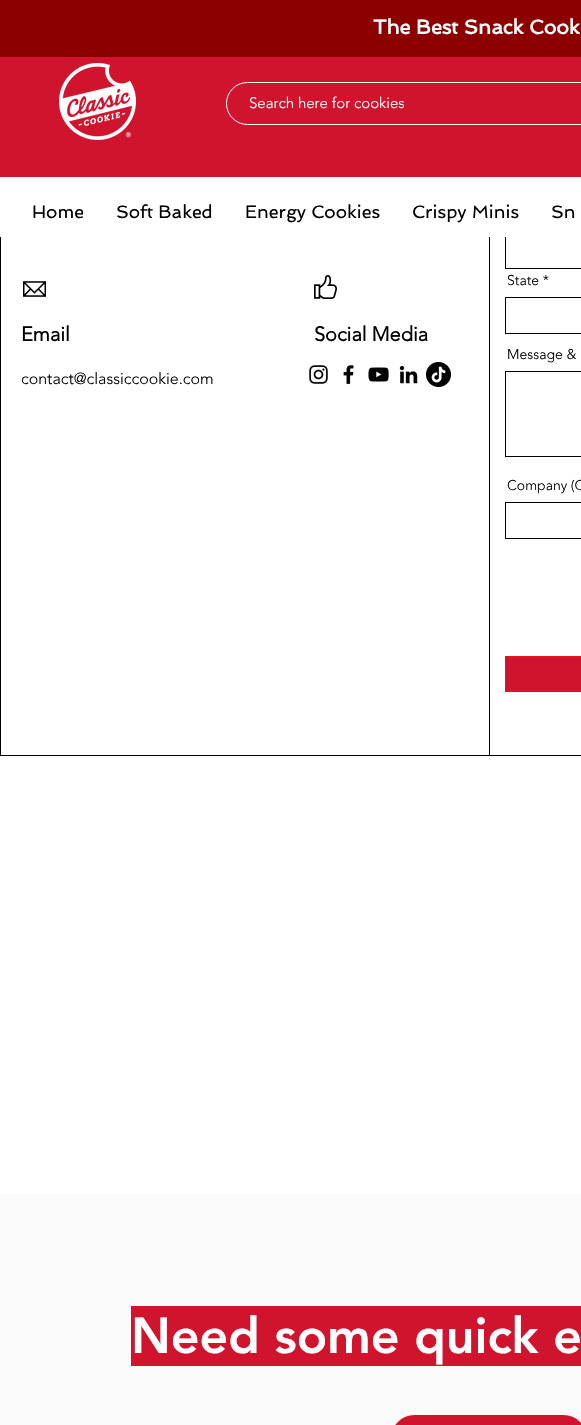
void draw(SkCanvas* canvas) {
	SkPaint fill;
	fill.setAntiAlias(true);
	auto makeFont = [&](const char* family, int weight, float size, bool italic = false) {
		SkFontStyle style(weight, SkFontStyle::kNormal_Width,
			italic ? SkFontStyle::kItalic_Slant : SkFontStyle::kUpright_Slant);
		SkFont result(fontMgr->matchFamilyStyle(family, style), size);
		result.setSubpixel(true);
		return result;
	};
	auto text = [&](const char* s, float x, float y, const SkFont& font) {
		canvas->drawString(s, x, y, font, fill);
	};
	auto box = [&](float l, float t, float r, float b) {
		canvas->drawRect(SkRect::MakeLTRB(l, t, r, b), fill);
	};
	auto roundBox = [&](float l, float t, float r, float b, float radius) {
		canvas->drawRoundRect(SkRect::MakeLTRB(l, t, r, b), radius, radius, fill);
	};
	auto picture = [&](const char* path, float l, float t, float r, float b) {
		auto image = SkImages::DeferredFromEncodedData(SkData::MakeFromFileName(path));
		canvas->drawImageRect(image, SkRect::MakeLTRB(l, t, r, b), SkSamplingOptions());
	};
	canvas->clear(0xFFFFFFFF);
	fill.setColor(0xFF8C0000);
	box(0, 0, 581, 57);
	fill.setColor(0xFFD0142D);
	box(0, 57, 581, 177);
	picture("image0.png", 59, 63, 136, 140);
	fill.setStyle(SkPaint::kStroke_Style);
	fill.setStrokeWidth(1);
	fill.setColor(0xFFFFFFFF);
	canvas->drawRoundRect(SkRect::MakeLTRB(226.5f, 82.5f, 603.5f, 124.5f), 21, 21, fill);
	fill.setStyle(SkPaint::kFill_Style);
	fill.setColor(0xFF000000);
	box(0, 237, 581, 756);
	fill.setColor(0xFFFFFFFF);
	box(490, 237, 581, 755);
	fill.setStyle(SkPaint::kStroke_Style);
	fill.setColor(0xFF000000);
	canvas->drawRect(SkRect::MakeLTRB(505.5f, 232.5f, 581.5f, 268.5f), fill);
	fill.setStyle(SkPaint::kFill_Style);
	fill.setColor(0xFFFFFFFF);
	box(505, 232, 581, 237);
	box(1, 237, 489, 755);
	picture("image1.png", 23, 281, 46, 297);
	picture("image2.png", 314, 275, 337, 299);
	picture("image3.png", 309, 365, 328, 384);
	picture("image4.png", 343, 365, 354, 385);
	picture("image5.png", 368, 367, 389, 382);
	picture("image6.png", 399, 365, 418, 384);
	picture("image7.png", 426, 362, 451, 387);
	fill.setStyle(SkPaint::kStroke_Style);
	fill.setColor(0xFF000000);
	canvas->drawRect(SkRect::MakeLTRB(505.5f, 297.5f, 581.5f, 333.5f), fill);
	canvas->drawRect(SkRect::MakeLTRB(505.5f, 371.5f, 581.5f, 456.5f), fill);
	canvas->drawRect(SkRect::MakeLTRB(505.5f, 502.5f, 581.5f, 538.5f), fill);
	fill.setStyle(SkPaint::kFill_Style);
	fill.setColor(0xFFD0142D);
	canvas->drawRect(SkRect::MakeLTRB(505.5f, 656.5f, 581.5f, 691.5f), fill);
	fill.setStyle(SkPaint::kStroke_Style);
	fill.setColor(0xFFEB1414);
	canvas->drawRect(SkRect::MakeLTRB(505.5f, 656.5f, 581.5f, 691.5f), fill);
	fill.setStyle(SkPaint::kFill_Style);
	fill.setColor(0xFFFAFAFA);
	box(0, 1194, 581, 1425);
	fill.setColor(0xFFD0142D);
	box(131, 1306, 581, 1366);
	roundBox(391, 1415, 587, 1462, 37);
	auto font1 = makeFont("Spinnaker", 700, 20);
	fill.setColor(0xFFFFFFFF);
	text("The Best Snack Cook", 373, 34, font1);
	auto font2 = makeFont("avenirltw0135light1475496", 300, 15);
	text("Search here for cookies", 249, 108, font2);
	auto font3 = makeFont("Spinnaker", 400, 18);
	fill.setColor(0xFF000000);
	text("Home", 32, 218, font3);
	text("Soft Baked", 116, 218, font3);
	text("Energy Cookies", 245, 218, font3);
	text("Crispy Minis", 412, 218, font3);
	text("Sn", 551, 218, font3);
	auto font4 = makeFont("avenirltw0135light1475496", 700, 20);
	text("Email", 21, 341, font4);
	text("Social Media", 314, 341, font4);
	auto font5 = makeFont("avenirltw0135light1475496", 300, 16);
	text("contact@classiccookie.com", 21, 384, font5);
	auto font6 = makeFont("avenirltw0135light1475496", 300, 14);
	text("State *", 507, 285, font6);
	text("Message &", 507, 359, font6);
	text("Company (O", 507, 490, font6);
	auto font7 = makeFont("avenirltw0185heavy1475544", 900, 50);
	fill.setColor(0xFFFFFFFF);
	text("Need some quick e", 131, 1353, font7);
}
